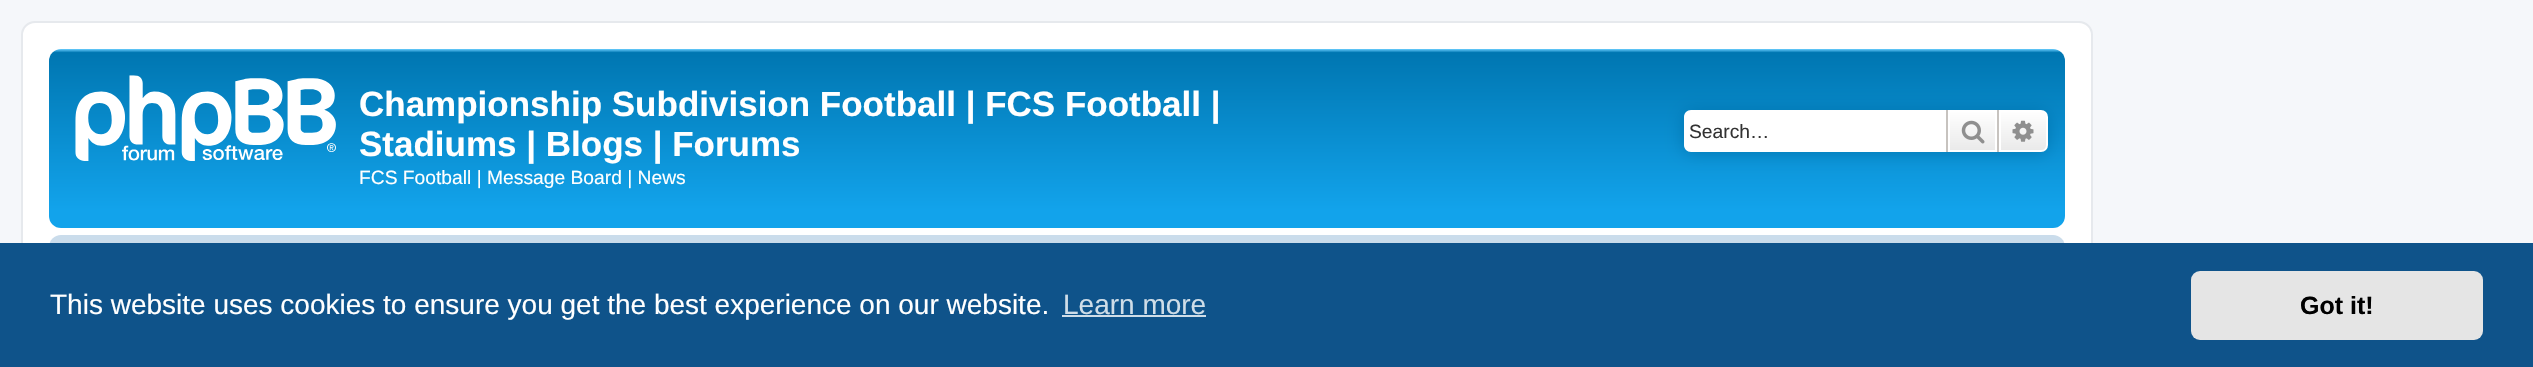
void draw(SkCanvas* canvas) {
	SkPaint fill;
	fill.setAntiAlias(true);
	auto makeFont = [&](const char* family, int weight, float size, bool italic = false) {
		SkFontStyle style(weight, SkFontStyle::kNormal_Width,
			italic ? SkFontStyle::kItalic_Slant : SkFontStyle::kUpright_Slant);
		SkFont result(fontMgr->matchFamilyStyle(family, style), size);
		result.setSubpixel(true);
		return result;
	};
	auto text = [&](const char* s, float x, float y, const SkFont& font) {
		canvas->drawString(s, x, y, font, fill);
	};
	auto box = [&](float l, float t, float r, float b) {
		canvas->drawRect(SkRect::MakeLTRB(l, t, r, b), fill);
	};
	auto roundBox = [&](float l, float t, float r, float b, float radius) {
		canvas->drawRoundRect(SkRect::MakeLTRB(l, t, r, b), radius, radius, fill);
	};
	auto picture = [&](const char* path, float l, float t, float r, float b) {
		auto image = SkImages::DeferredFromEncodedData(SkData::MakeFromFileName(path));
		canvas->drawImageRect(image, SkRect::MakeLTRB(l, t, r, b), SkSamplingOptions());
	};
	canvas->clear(0xFFF5F7FA);
	fill.setColor(0xFFFFFFFF);
	canvas->drawRoundRect(SkRect::MakeLTRB(22, 22, 2092, 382), 13, 13, fill);
	fill.setStyle(SkPaint::kStroke_Style);
	fill.setStrokeWidth(2);
	fill.setColor(0xFFE6E9ED);
	canvas->drawRoundRect(SkRect::MakeLTRB(22, 22, 2092, 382), 13, 13, fill);
	fill.setStyle(SkPaint::kFill_Style);
	{
		const SkColor colors[] = {0xFF6ACEFF, 0xFF0076B1, 0xFF12A3EB, 0xFF12A3EB};
		const float stops[] = {0, 0.02f, 0.9f, 1};
		const SkPoint ends[] = {{1057, 49}, {1057, 228}};
		fill.setShader(SkGradientShader::MakeLinear(ends, colors, stops, 4, SkTileMode::kClamp));
		fill.setAlpha(255);
	}
	roundBox(49, 49, 2065, 228, 12);
	picture("image0.png", 75, 75, 336, 161);
	fill.setShader(nullptr);
	fill.setColor(0xFF0075B0);
	fill.setMaskFilter(SkMaskFilter::MakeBlur(kNormal_SkBlurStyle, 9));
	canvas->drawRoundRect(SkRect::MakeLTRB(1684, 110, 2048, 152), 7, 7, fill);
	fill.setMaskFilter(nullptr);
	fill.setColor(0xFFFFFFFF);
	canvas->drawPath(SkPathBuilder().moveTo(1691, 110).lineTo(1946, 110).lineTo(1946, 152).lineTo(1691, 152).cubicTo(1687, 152, 1684, 149, 1684, 145).lineTo(1684, 117).cubicTo(1684, 113, 1687, 110, 1691, 110).close().detach(), fill);
	{
		const SkColor colors[] = {0xFFFFFFFF, 0xFFE9E9E9};
		const float stops[] = {0, 1};
		const SkPoint ends[] = {{1972, 110}, {1972, 152}};
		fill.setShader(SkGradientShader::MakeLinear(ends, colors, stops, 2, SkTileMode::kClamp));
		fill.setAlpha(255);
	}
	box(1950, 112, 1995, 150);
	fill.setStyle(SkPaint::kStroke_Style);
	fill.setShader(nullptr);
	fill.setColor(0xFFFFFFFF);
	canvas->drawRect(SkRect::MakeLTRB(1949, 111, 1996, 151), fill);
	fill.setStyle(SkPaint::kFill_Style);
	fill.setColor(0xFFC7C3BF);
	box(1997, 110, 1999, 152);
	box(1946, 110, 1948, 152);
	picture("image1.png", 1961, 120, 1985, 144);
	{
		const SkColor colors[] = {0xFFFFFFFF, 0xFFE9E9E9};
		const float stops[] = {0, 1};
		const SkPoint ends[] = {{2023, 110}, {2023, 152}};
		fill.setShader(SkGradientShader::MakeLinear(ends, colors, stops, 2, SkTileMode::kClamp));
		fill.setAlpha(255);
	}
	canvas->drawPath(SkPathBuilder().moveTo(2000, 111).lineTo(2041, 111).cubicTo(2044.5f, 111, 2047, 113.5f, 2047, 117).lineTo(2047, 145).cubicTo(2047, 148.5f, 2044.5f, 151, 2041, 151).lineTo(2000, 151).close().detach(), fill);
	fill.setStyle(SkPaint::kStroke_Style);
	fill.setShader(nullptr);
	fill.setColor(0xFFFFFFFF);
	canvas->drawPath(SkPathBuilder().moveTo(2000, 111).lineTo(2041, 111).cubicTo(2044.5f, 111, 2047, 113.5f, 2047, 117).lineTo(2047, 145).cubicTo(2047, 148.5f, 2044.5f, 151, 2041, 151).lineTo(2000, 151).close().detach(), fill);
	picture("image2.png", 2012, 120, 2034, 142);
	fill.setStyle(SkPaint::kFill_Style);
	fill.setColor(0xFFCADCEB);
	roundBox(49, 235, 2065, 348, 12);
	fill.setColor(0xFF0F538A);
	box(0, 243, 2533, 367);
	fill.setColor(0xFFCFDDE8);
	box(1062, 315, 1206, 317);
	fill.setColor(0xFFE5E5E5);
	roundBox(2191, 271, 2483, 340, 9);
	auto font1 = makeFont("Liberation Sans", 700, 35);
	fill.setColor(0xFFFFFFFF);
	text("Championship Subdivision Football | FCS Football |", 359, 116, font1);
	text("Stadiums | Blogs | Forums", 359, 156, font1);
	auto font2 = makeFont("Liberation Sans", 400, 19.25f);
	text("FCS Football | Message Board | News", 359, 184, font2);
	fill.setColor(0xFF333333);
	text("Search…", 1689, 138, font2);
	auto font3 = makeFont("Liberation Sans", 400, 28);
	fill.setColor(0xFFFFFFFF);
	text("This website uses cookies to ensure you get the best experience on our website.", 50, 314, font3);
	fill.setColor(0xFFCFDDE8);
	text("Learn more", 1063, 314, font3);
	auto font4 = makeFont("Liberation Sans", 700, 25);
	fill.setColor(0xFF000000);
	text("Got it!", 2300, 314, font4);
}
